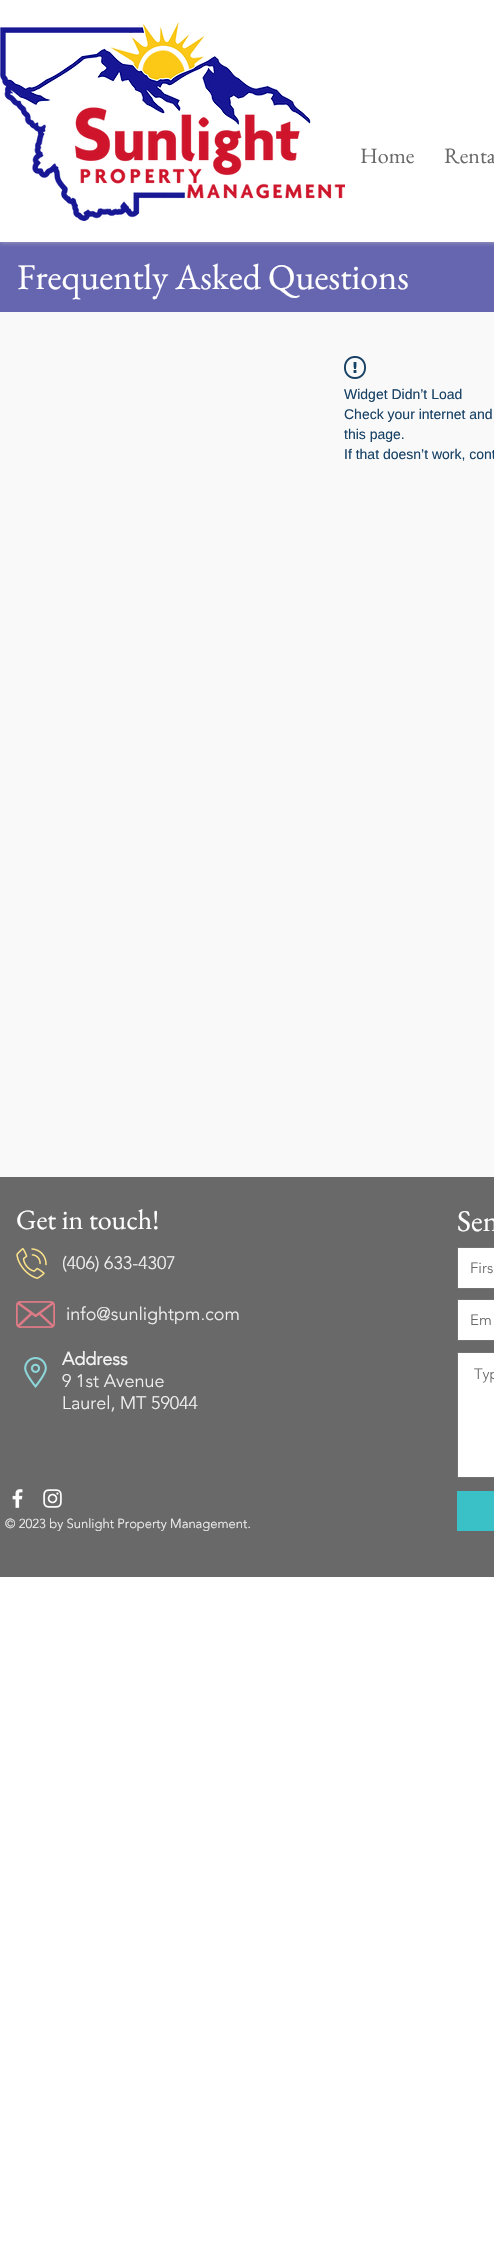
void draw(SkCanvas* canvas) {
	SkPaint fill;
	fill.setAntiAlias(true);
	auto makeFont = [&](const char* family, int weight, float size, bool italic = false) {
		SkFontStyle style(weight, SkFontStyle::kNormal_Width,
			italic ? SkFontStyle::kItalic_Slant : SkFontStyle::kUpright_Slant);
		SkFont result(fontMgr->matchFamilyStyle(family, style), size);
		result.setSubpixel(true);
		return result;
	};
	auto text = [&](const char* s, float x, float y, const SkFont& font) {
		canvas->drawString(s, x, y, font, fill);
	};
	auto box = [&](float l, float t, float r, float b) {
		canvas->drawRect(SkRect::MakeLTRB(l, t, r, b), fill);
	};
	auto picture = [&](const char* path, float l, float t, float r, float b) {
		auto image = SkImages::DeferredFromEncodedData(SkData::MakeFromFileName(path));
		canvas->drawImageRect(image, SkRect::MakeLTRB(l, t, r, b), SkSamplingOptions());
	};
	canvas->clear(0xFFFFFFFF);
	fill.setColor(0xFF6666B0);
	box(0, 242, 494, 312);
	canvas->save();
	canvas->clipRect(SkRect::MakeLTRB(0, 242, 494, 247));
	fill.setColor(0xB3C9C9C9);
	fill.setMaskFilter(SkMaskFilter::MakeBlur(kNormal_SkBlurStyle, 2.5f));
	canvas->drawRect(SkRect::MakeLTRB(0, 0, 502, 242), fill);
	fill.setMaskFilter(nullptr);
	canvas->restore();
	picture("image0.png", 0, 22, 345, 221);
	fill.setColor(0xFFF9F9F9);
	box(0, 312, 494, 1177);
	picture("image1.png", 344, 356, 366, 379);
	fill.setColor(0xFF696969);
	box(0, 1177, 494, 1577);
	fill.setColor(0xFFFFFFFF);
	canvas->drawRect(SkRect::MakeLTRB(457.5f, 1247.5f, 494.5f, 1288.5f), fill);
	fill.setStyle(SkPaint::kStroke_Style);
	fill.setStrokeWidth(1);
	fill.setColor(0xFF737373);
	canvas->drawRect(SkRect::MakeLTRB(457.5f, 1247.5f, 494.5f, 1288.5f), fill);
	fill.setStyle(SkPaint::kFill_Style);
	fill.setColor(0xFFFFFFFF);
	canvas->drawRect(SkRect::MakeLTRB(457.5f, 1299.5f, 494.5f, 1340.5f), fill);
	fill.setStyle(SkPaint::kStroke_Style);
	fill.setColor(0xFF737373);
	canvas->drawRect(SkRect::MakeLTRB(457.5f, 1299.5f, 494.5f, 1340.5f), fill);
	fill.setStyle(SkPaint::kFill_Style);
	fill.setColor(0xFFFFFFFF);
	canvas->drawRect(SkRect::MakeLTRB(457.5f, 1352.5f, 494.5f, 1477.5f), fill);
	fill.setStyle(SkPaint::kStroke_Style);
	fill.setColor(0xFF737373);
	canvas->drawRect(SkRect::MakeLTRB(457.5f, 1352.5f, 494.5f, 1477.5f), fill);
	fill.setStyle(SkPaint::kFill_Style);
	fill.setColor(0xFF3AC0C7);
	box(457, 1491, 494, 1531);
	picture("image2.png", 16, 1248, 47, 1279);
	picture("image3.png", 16, 1301, 55, 1328);
	picture("image4.png", 24, 1357, 47, 1388);
	picture("image5.png", 12, 1489, 23, 1508);
	picture("image6.png", 43, 1489, 62, 1508);
	auto font1 = makeFont("EB Garamond", 400, 22);
	fill.setColor(0xFF696969);
	text("Home", 360, 163, font1);
	text("Renta", 444, 163, font1);
	auto font2 = makeFont("EB Garamond", 400, 36);
	fill.setColor(0xFFFFFFFF);
	text("Frequently Asked Questions", 17, 289, font2);
	auto font3 = makeFont("Liberation Sans", 400, 14);
	fill.setColor(0xFF174165);
	text("Widget Didn’t Load", 344, 399, font3);
	text("Check your internet and", 344, 419, font3);
	text("this page.", 344, 439, font3);
	text("If that doesn’t work, cont", 344, 459, font3);
	auto font4 = makeFont("EB Garamond", 400, 28);
	fill.setColor(0xFFFFFFFF);
	text("Get in touch!", 16, 1229, font4);
	auto font5 = makeFont("EB Garamond", 400, 30);
	text("Sen", 457, 1231, font5);
	auto font6 = makeFont("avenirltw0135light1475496", 300, 15);
	fill.setColor(0xFF696969);
	text("Firs", 470, 1273, font6);
	text("Em", 470, 1325, font6);
	text("Typ", 474, 1379, font6);
	auto font7 = makeFont("avenirltw0135light1475496", 300, 18);
	fill.setColor(0xFFF2F2F2);
	text("(406) 633-4307", 62, 1269, font7);
	text("info@sunlightpm.com", 66, 1320, font7);
	auto font8 = makeFont("avenirltw0135light1475496", 700, 18);
	text("Address", 62, 1365, font8);
	text("9 1st Avenue", 62, 1387, font7);
	text("Laurel, MT 59044", 62, 1409, font7);
	auto font9 = makeFont("avenirltw0135light1475496", 300, 13);
	text("© 2023 by Sunlight Property Management.", 5, 1528, font9);
}
